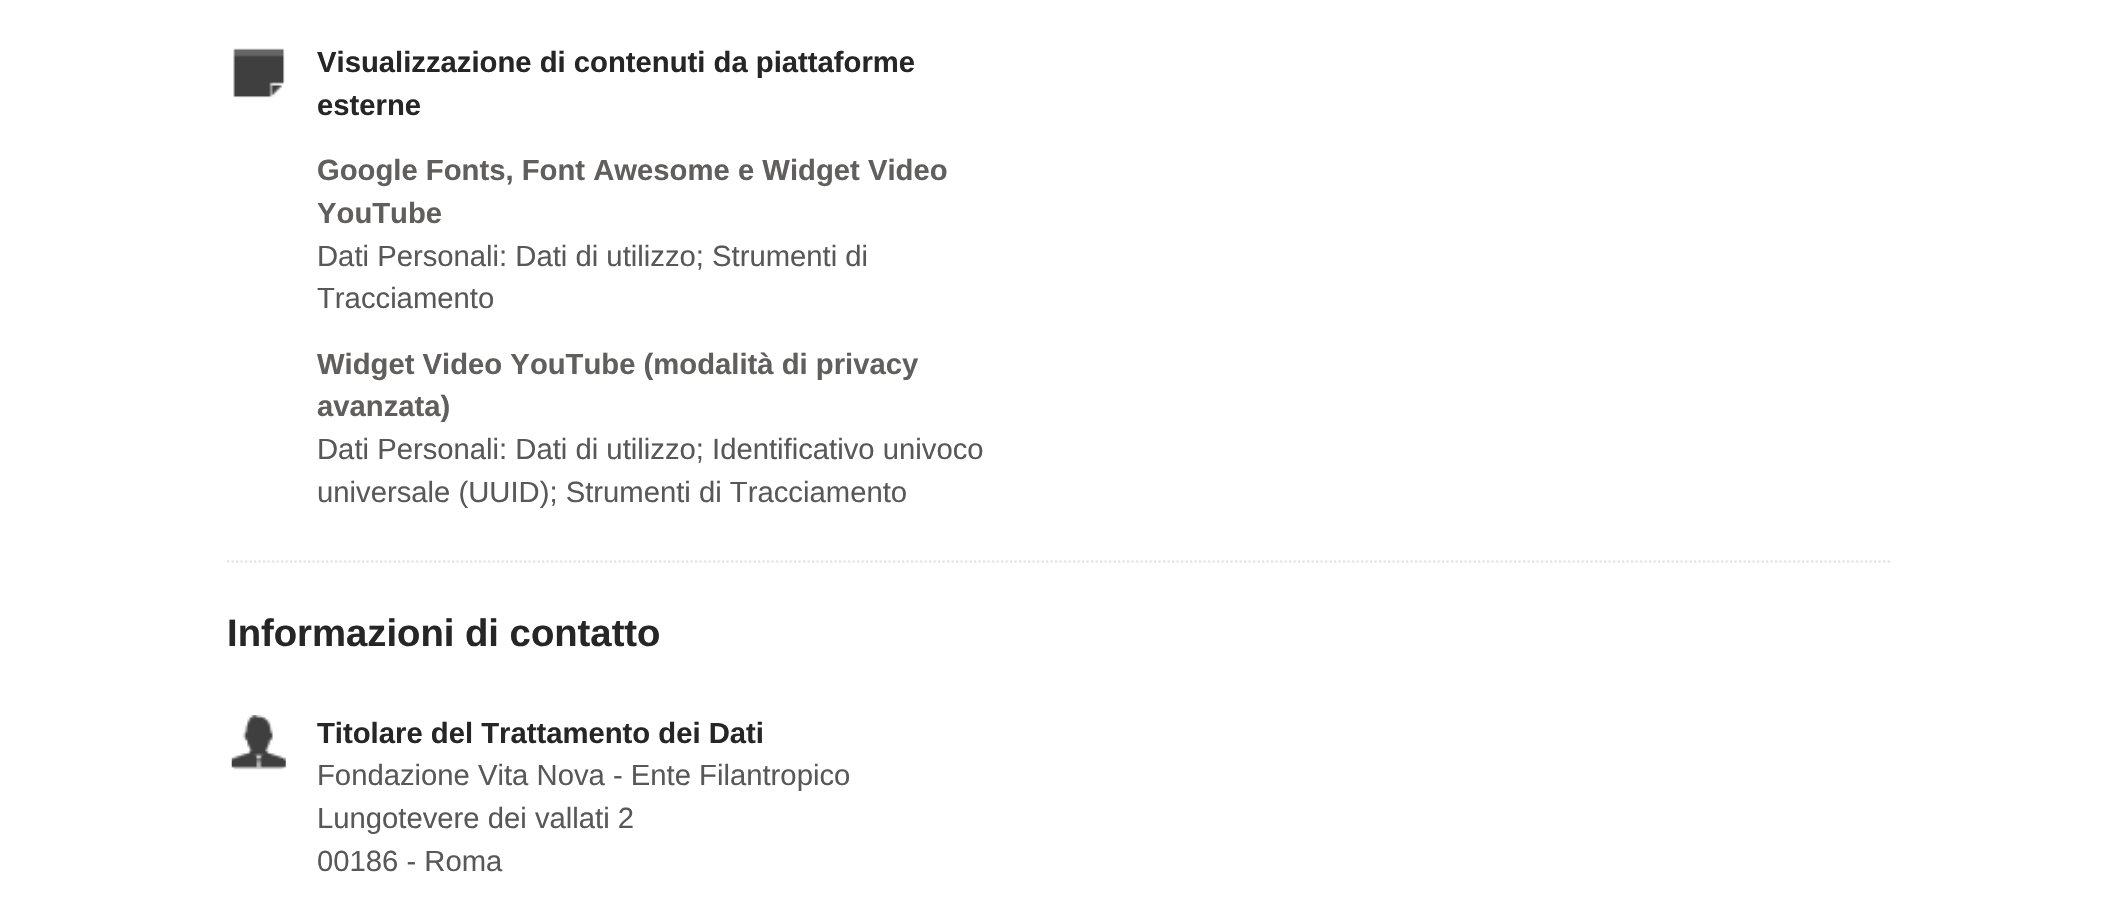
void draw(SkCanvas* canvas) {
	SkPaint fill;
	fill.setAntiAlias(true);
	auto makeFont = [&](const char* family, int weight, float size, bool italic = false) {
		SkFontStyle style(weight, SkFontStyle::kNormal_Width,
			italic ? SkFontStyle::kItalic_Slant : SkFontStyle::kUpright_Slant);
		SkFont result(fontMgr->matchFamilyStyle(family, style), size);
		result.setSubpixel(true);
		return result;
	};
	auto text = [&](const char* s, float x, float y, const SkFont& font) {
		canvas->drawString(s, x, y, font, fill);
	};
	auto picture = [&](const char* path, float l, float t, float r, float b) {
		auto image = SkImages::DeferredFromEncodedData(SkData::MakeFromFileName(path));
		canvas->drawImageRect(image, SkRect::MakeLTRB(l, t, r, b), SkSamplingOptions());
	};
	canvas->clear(0xFFFFFFFF);
	fill.setStyle(SkPaint::kStroke_Style);
	fill.setStrokeWidth(2.2f);
	fill.setColor(0xFFDFDFDF);
	fill.setPathEffect(SkDashPathEffect::Make({{2.25f, 2.25f}}, 0));
	canvas->drawPath(SkPathBuilder().moveTo(227, 561.5f).lineTo(1892, 561.5f).detach(), fill);
	fill.setPathEffect(nullptr);
	picture("image0.png", 233, 48, 285, 98);
	picture("image1.png", 231, 715, 286, 770);
	auto font1 = makeFont("Liberation Sans", 700, 29.25f);
	fill.setStyle(SkPaint::kFill_Style);
	fill.setColor(0xFF262626);
	text("Visualizzazione di contenuti da piattaforme", 317, 72, font1);
	text("esterne", 317, 115, font1);
	fill.setColor(0xFF615E5E);
	text("Google Fonts, Font Awesome e Widget Video", 317, 180, font1);
	text("YouTube", 317, 223, font1);
	auto font2 = makeFont("Liberation Sans", 400, 29.25f);
	fill.setColor(0xFF595858);
	text("Dati Personali: Dati di utilizzo; Strumenti di", 317, 266, font2);
	text("Tracciamento", 317, 308, font2);
	fill.setColor(0xFF615E5E);
	text("Widget Video YouTube (modalità di privacy", 317, 374, font1);
	text("avanzata)", 317, 416, font1);
	fill.setColor(0xFF595858);
	text("Dati Personali: Dati di utilizzo; Identificativo univoco", 317, 459, font2);
	text("universale (UUID); Strumenti di Tracciamento", 317, 502, font2);
	auto font3 = makeFont("Liberation Sans", 700, 38.25f);
	fill.setColor(0xFF262626);
	text("Informazioni di contatto", 227, 646, font3);
	text("Titolare del Trattamento dei Dati", 317, 743, font1);
	fill.setColor(0xFF595858);
	text("Fondazione Vita Nova - Ente Filantropico", 317, 785, font2);
	text("Lungotevere dei vallati 2", 317, 828, font2);
	text("00186 - Roma", 317, 871, font2);
}
